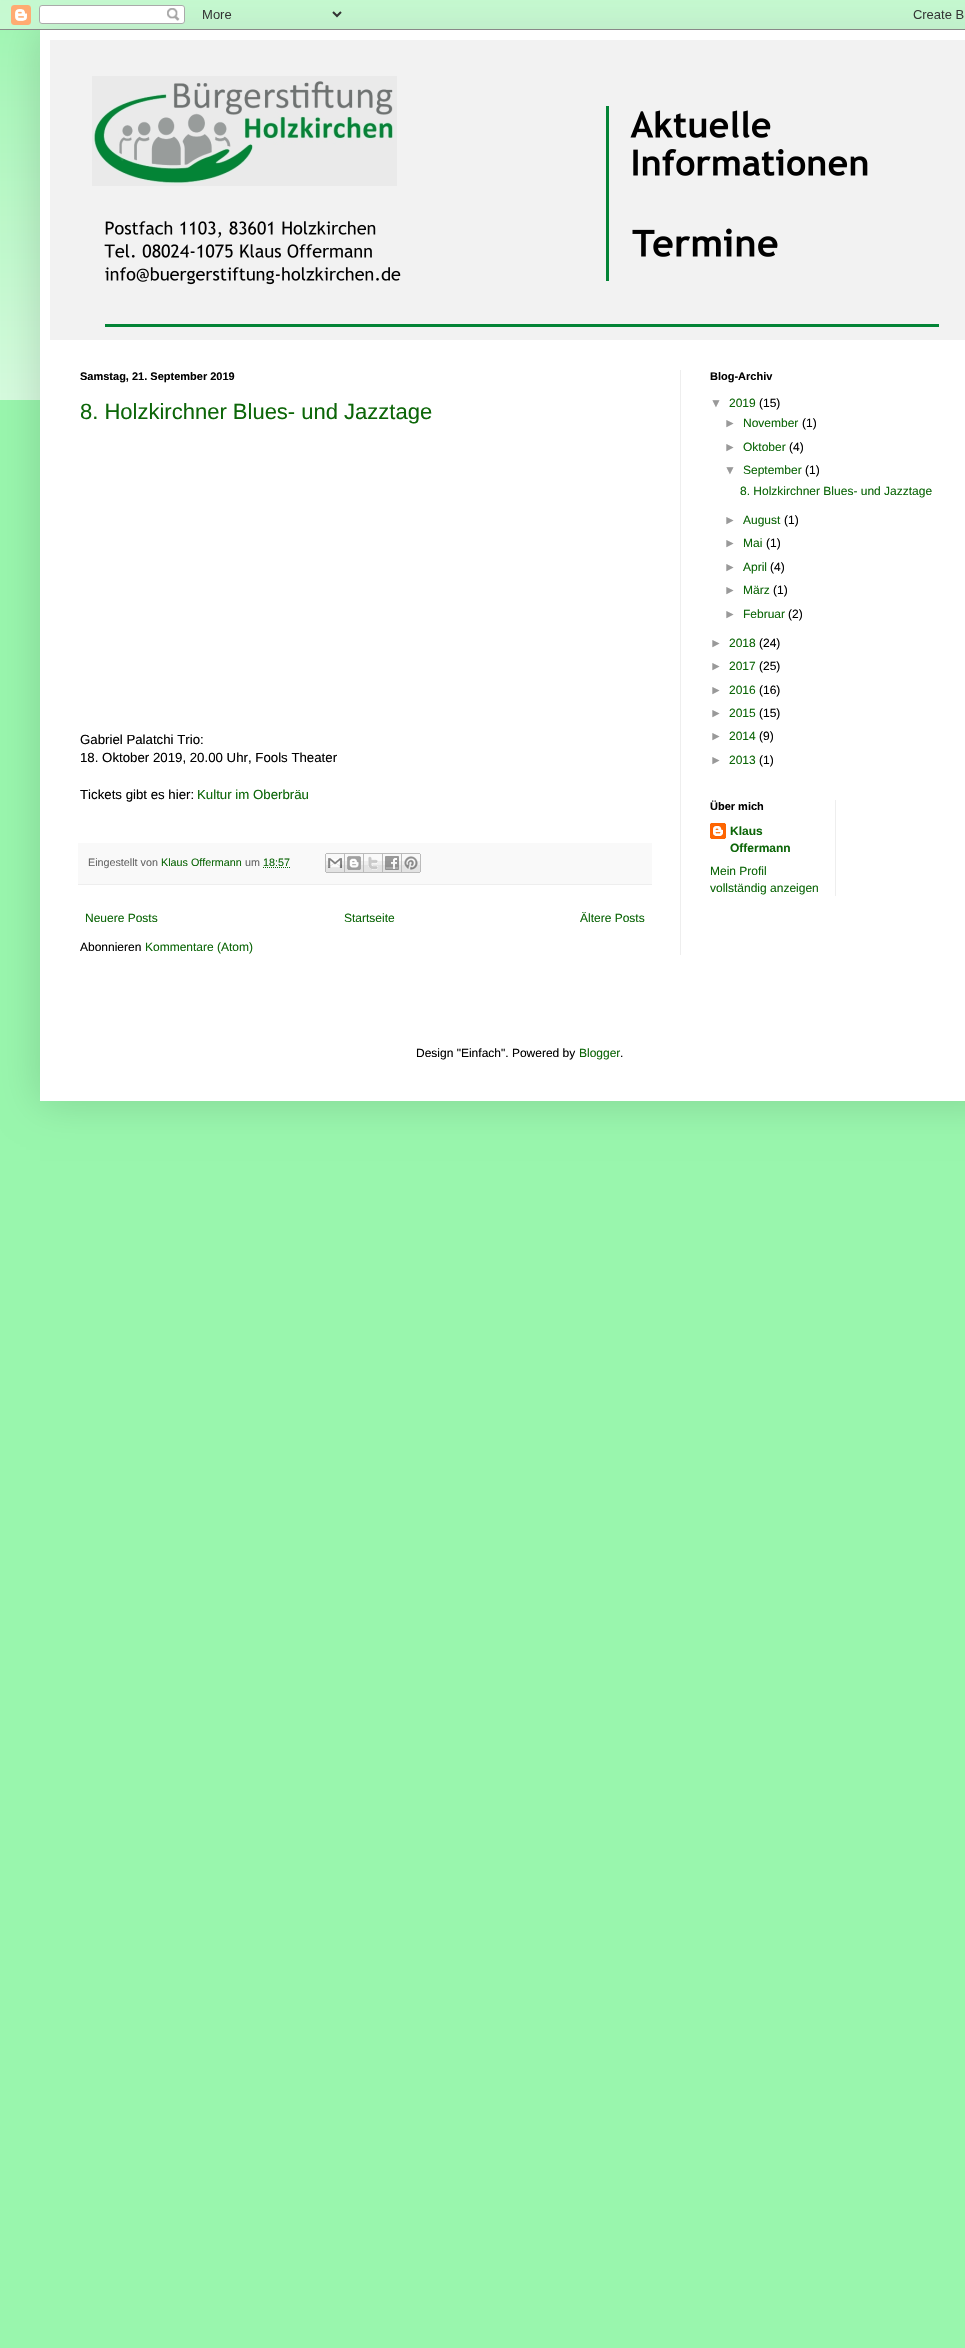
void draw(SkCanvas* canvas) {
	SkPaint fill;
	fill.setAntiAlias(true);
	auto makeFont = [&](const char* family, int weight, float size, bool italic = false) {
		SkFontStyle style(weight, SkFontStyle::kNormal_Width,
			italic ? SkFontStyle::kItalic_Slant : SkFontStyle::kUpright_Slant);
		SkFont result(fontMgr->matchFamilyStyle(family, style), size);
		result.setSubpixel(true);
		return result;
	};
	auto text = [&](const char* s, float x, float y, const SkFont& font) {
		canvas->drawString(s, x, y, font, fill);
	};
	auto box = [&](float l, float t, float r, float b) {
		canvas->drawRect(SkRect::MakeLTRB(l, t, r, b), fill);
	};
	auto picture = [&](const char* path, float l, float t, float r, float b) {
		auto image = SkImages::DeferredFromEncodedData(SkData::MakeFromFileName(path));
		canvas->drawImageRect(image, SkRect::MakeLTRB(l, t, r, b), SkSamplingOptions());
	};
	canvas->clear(0xFF99F6AD);
	picture("image0.png", 0, 0, 965, 400);
	fill.setColor(0x26000000);
	fill.setMaskFilter(SkMaskFilter::MakeBlur(kNormal_SkBlurStyle, 20));
	canvas->drawRect(SkRect::MakeLTRB(40, 30, 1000, 1101), fill);
	fill.setMaskFilter(nullptr);
	picture("image1.png", 0, 0, 965, 30);
	fill.setColor(0xFFFFFFFF);
	box(40, 30, 965, 1101);
	picture("image2.png", 50, 40, 965, 340);
	fill.setColor(0xFFEEEEEE);
	box(680, 370, 681, 955);
	fill.setColor(0xFFF9F9F9);
	box(78, 843, 652, 884);
	fill.setColor(0xFFEEEEEE);
	box(78, 884, 652, 885);
	fill.setStyle(SkPaint::kStroke_Style);
	fill.setStrokeWidth(1);
	fill.setColor(0xFF0C6608);
	fill.setPathEffect(SkDashPathEffect::Make({{1, 1}}, 0));
	canvas->drawPath(SkPathBuilder().moveTo(263, 867.5f).lineTo(290.5f, 867.5f).detach(), fill);
	fill.setPathEffect(nullptr);
	picture("image3.png", 325, 853, 345, 873);
	picture("image4.png", 345, 853, 364, 873);
	picture("image5.png", 364, 853, 383, 873);
	picture("image6.png", 383, 853, 402, 873);
	picture("image7.png", 402, 853, 421, 873);
	picture("image8.png", 710, 823, 726, 839);
	fill.setStyle(SkPaint::kFill_Style);
	fill.setColor(0xFFEEEEEE);
	box(835, 800, 836, 896);
	auto font1 = makeFont("Liberation Sans", 700, 11);
	fill.setColor(0xFF000000);
	text("Samstag, 21. September 2019", 80, 380, font1);
	auto font2 = makeFont("Liberation Sans", 400, 22);
	fill.setColor(0xFF0C6608);
	text("8. Holzkirchner Blues- und Jazztage", 80, 419, font2);
	auto font3 = makeFont("Liberation Sans", 400, 13.25f);
	fill.setColor(0xFF000000);
	text("Gabriel Palatchi Trio:", 80, 744, font3);
	text("18. Oktober 2019, 20.00 Uhr, Fools Theater", 80, 762, font3);
	text("Tickets gibt es hier:", 80, 799, font3);
	fill.setColor(0xFF0C6608);
	text("Kultur im Oberbräu", 197, 799, font3);
	auto font4 = makeFont("Liberation Sans", 400, 10.75f);
	fill.setColor(0xFF666666);
	text("Eingestellt von", 88, 866, font4);
	fill.setColor(0xFF0C6608);
	text("Klaus Offermann", 161, 866, font4);
	fill.setColor(0xFF666666);
	text("um", 245, 866, font4);
	fill.setColor(0xFF0C6608);
	text("18:57", 263, 866, font4);
	auto font5 = makeFont("Liberation Sans", 400, 12);
	text("Neuere Posts", 85, 922, font5);
	text("Startseite", 344, 922, font5);
	text("Ältere Posts", 580, 922, font5);
	fill.setColor(0xFF000000);
	text("Abonnieren", 80, 951, font5);
	fill.setColor(0xFF0C6608);
	text("Kommentare (Atom)", 145, 951, font5);
	fill.setColor(0xFF000000);
	text("Blog-Archiv", 710, 380, font1);
	fill.setColor(0xFF999999);
	text("▼", 710, 407, font5);
	fill.setColor(0xFF0C6608);
	text("2019", 729, 407, font5);
	fill.setColor(0xFF000000);
	text("(15)", 759, 407, font5);
	fill.setColor(0xFF999999);
	text("►", 724, 427, font5);
	fill.setColor(0xFF0C6608);
	text("November", 743, 427, font5);
	fill.setColor(0xFF000000);
	text("(1)", 802, 427, font5);
	fill.setColor(0xFF999999);
	text("►", 724, 451, font5);
	fill.setColor(0xFF0C6608);
	text("Oktober", 743, 451, font5);
	fill.setColor(0xFF000000);
	text("(4)", 789, 451, font5);
	fill.setColor(0xFF999999);
	text("▼", 724, 474, font5);
	fill.setColor(0xFF0C6608);
	text("September", 743, 474, font5);
	fill.setColor(0xFF000000);
	text("(1)", 805, 474, font5);
	fill.setColor(0xFF0C6608);
	text("8. Holzkirchner Blues- und Jazztage", 740, 495, font5);
	fill.setColor(0xFF999999);
	text("►", 724, 524, font5);
	fill.setColor(0xFF0C6608);
	text("August", 743, 524, font5);
	fill.setColor(0xFF000000);
	text("(1)", 784, 524, font5);
	fill.setColor(0xFF999999);
	text("►", 724, 547, font5);
	fill.setColor(0xFF0C6608);
	text("Mai", 743, 547, font5);
	fill.setColor(0xFF000000);
	text("(1)", 766, 547, font5);
	fill.setColor(0xFF999999);
	text("►", 724, 571, font5);
	fill.setColor(0xFF0C6608);
	text("April", 743, 571, font5);
	fill.setColor(0xFF000000);
	text("(4)", 770, 571, font5);
	fill.setColor(0xFF999999);
	text("►", 724, 594, font5);
	fill.setColor(0xFF0C6608);
	text("März", 743, 594, font5);
	fill.setColor(0xFF000000);
	text("(1)", 773, 594, font5);
	fill.setColor(0xFF999999);
	text("►", 724, 618, font5);
	fill.setColor(0xFF0C6608);
	text("Februar", 743, 618, font5);
	fill.setColor(0xFF000000);
	text("(2)", 788, 618, font5);
	fill.setColor(0xFF999999);
	text("►", 710, 647, font5);
	fill.setColor(0xFF0C6608);
	text("2018", 729, 647, font5);
	fill.setColor(0xFF000000);
	text("(24)", 759, 647, font5);
	fill.setColor(0xFF999999);
	text("►", 710, 670, font5);
	fill.setColor(0xFF0C6608);
	text("2017", 729, 670, font5);
	fill.setColor(0xFF000000);
	text("(25)", 759, 670, font5);
	fill.setColor(0xFF999999);
	text("►", 710, 694, font5);
	fill.setColor(0xFF0C6608);
	text("2016", 729, 694, font5);
	fill.setColor(0xFF000000);
	text("(16)", 759, 694, font5);
	fill.setColor(0xFF999999);
	text("►", 710, 717, font5);
	fill.setColor(0xFF0C6608);
	text("2015", 729, 717, font5);
	fill.setColor(0xFF000000);
	text("(15)", 759, 717, font5);
	fill.setColor(0xFF999999);
	text("►", 710, 740, font5);
	fill.setColor(0xFF0C6608);
	text("2014", 729, 740, font5);
	fill.setColor(0xFF000000);
	text("(9)", 759, 740, font5);
	fill.setColor(0xFF999999);
	text("►", 710, 764, font5);
	fill.setColor(0xFF0C6608);
	text("2013", 729, 764, font5);
	fill.setColor(0xFF000000);
	text("(1)", 759, 764, font5);
	text("Über mich", 710, 810, font1);
	auto font6 = makeFont("Liberation Sans", 700, 12);
	fill.setColor(0xFF0C6608);
	text("Klaus", 730, 835, font6);
	text("Offermann", 730, 852, font6);
	text("Mein Profil", 710, 875, font5);
	text("vollständig anzeigen", 710, 892, font5);
	fill.setColor(0xFF000000);
	text("Design \"Einfach\". Powered by", 416, 1057, font5);
	fill.setColor(0xFF0C6608);
	text("Blogger", 579, 1057, font5);
	fill.setColor(0xFF000000);
	text(".", 620, 1057, font5);
}
